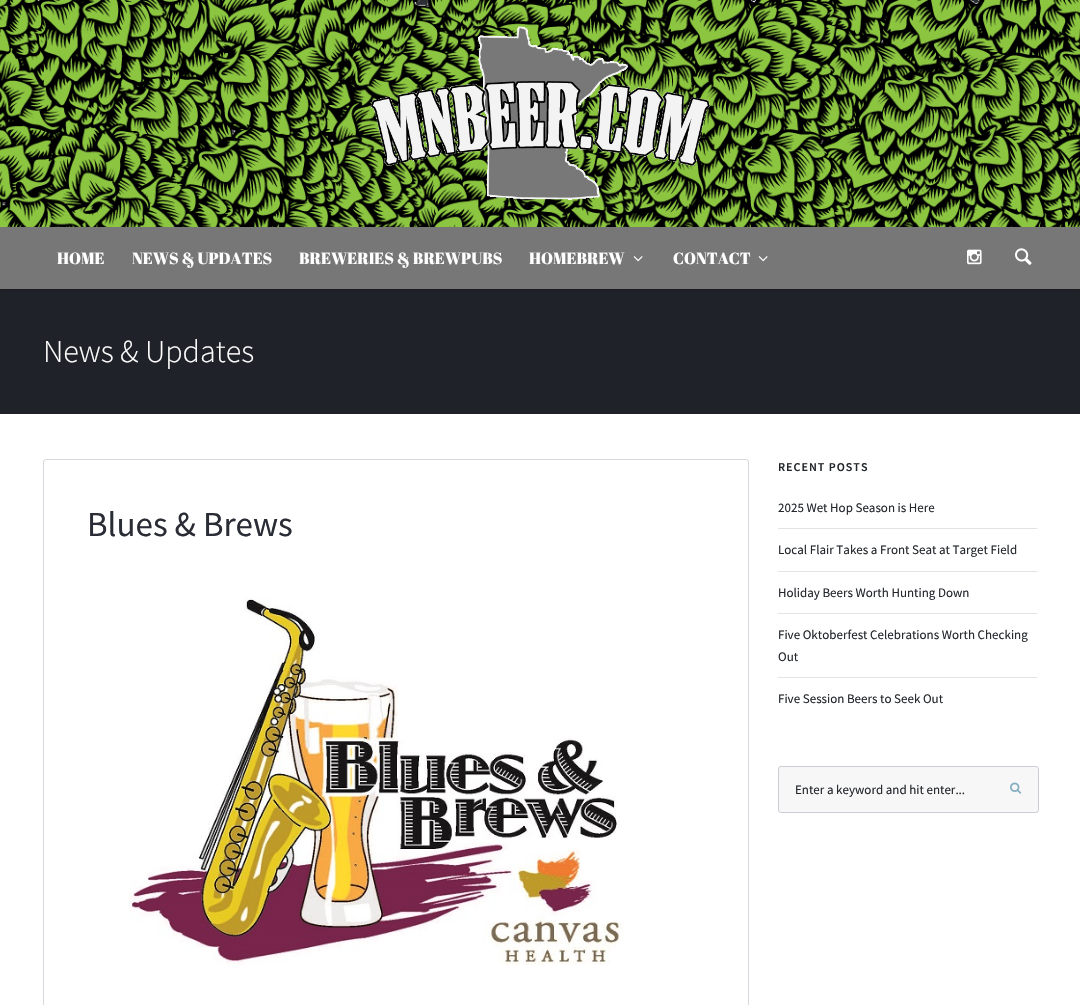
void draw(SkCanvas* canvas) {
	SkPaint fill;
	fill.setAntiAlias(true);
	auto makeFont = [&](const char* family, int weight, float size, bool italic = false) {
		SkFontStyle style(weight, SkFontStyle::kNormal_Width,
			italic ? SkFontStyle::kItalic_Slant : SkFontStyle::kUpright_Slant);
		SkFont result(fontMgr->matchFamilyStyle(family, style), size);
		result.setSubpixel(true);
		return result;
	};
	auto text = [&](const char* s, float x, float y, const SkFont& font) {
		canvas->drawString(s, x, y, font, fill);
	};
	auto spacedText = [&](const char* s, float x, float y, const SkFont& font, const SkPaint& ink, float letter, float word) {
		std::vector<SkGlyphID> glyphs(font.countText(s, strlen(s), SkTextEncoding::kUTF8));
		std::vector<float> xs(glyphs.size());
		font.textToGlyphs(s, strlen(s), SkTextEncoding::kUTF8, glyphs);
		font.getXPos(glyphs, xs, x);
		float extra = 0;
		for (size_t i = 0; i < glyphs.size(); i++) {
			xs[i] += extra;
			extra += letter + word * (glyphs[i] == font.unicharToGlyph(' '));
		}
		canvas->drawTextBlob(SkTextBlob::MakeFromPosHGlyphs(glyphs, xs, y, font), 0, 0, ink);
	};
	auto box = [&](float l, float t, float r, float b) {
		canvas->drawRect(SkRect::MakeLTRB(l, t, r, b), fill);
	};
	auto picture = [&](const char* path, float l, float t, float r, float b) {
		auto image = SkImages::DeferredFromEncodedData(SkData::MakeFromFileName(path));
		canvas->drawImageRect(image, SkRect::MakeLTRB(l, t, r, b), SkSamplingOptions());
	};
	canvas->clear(0xFFFFFFFF);
	fill.setColor(0xFF1F2228);
	box(0, 289, 1080, 414);
	fill.setColor(0x40000000);
	fill.setMaskFilter(SkMaskFilter::MakeBlur(kNormal_SkBlurStyle, 1));
	canvas->drawRect(SkRect::MakeLTRB(0, 1, 1080, 290), fill);
	fill.setMaskFilter(nullptr);
	fill.setColor(0xFF2C2F34);
	box(3, 0, 979, 205);
	picture("image0.png", 0, 0, 1080, 227);
	picture("image1.png", 371, 26, 710, 200);
	fill.setColor(0xFF777777);
	box(0, 227, 1080, 289);
	picture("image2.png", 633, 256, 643, 262);
	picture("image2.png", 758, 256, 768, 262);
	picture("image3.png", 967, 249, 982, 265);
	picture("image4.png", 1015, 248, 1032, 265);
	fill.setStyle(SkPaint::kStroke_Style);
	fill.setStrokeWidth(1);
	fill.setColor(0xFFD5D8DD);
	canvas->drawRoundRect(SkRect::MakeLTRB(43.5f, 459.5f, 748.5f, 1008.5f), 2.5f, 2.5f, fill);
	picture("image5.png", 129, 597, 624, 965);
	fill.setStyle(SkPaint::kFill_Style);
	fill.setColor(0xFFE2E4E4);
	box(778, 528, 1037, 529);
	box(778, 571, 1037, 572);
	box(778, 613, 1037, 614);
	box(778, 677, 1037, 678);
	fill.setColor(0xFFF7F7F7);
	canvas->drawRoundRect(SkRect::MakeLTRB(778.5f, 766.5f, 1038.5f, 812.5f), 2.5f, 2.5f, fill);
	fill.setStyle(SkPaint::kStroke_Style);
	fill.setColor(0xFFCACED4);
	canvas->drawRoundRect(SkRect::MakeLTRB(778.5f, 766.5f, 1038.5f, 812.5f), 2.5f, 2.5f, fill);
	picture("image6.png", 1010, 782, 1022, 794);
	auto font1 = makeFont("Abril Fatface", 400, 16);
	fill.setStyle(SkPaint::kFill_Style);
	fill.setColor(0xFFFFFFFF);
	text("HOME", 57, 264, font1);
	text("NEWS & UPDATES", 132, 264, font1);
	text("BREWERIES & BREWPUBS", 299, 264, font1);
	text("HOMEBREW", 529, 264, font1);
	text("CONTACT", 673, 264, font1);
	auto font2 = makeFont("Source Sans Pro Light", 300, 32);
	text("News & Updates", 43, 362, font2);
	auto font3 = makeFont("Source Sans Pro", 400, 35);
	fill.setColor(0xFF2A2D35);
	text("Blues & Brews", 87, 536, font3);
	auto font4 = makeFont("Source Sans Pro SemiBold", 600, 12);
	fill.setColor(0xFF23272C);
	spacedText("RECENT POSTS", 778, 471, font4, fill, 1, 0);
	auto font5 = makeFont("Source Sans Pro", 400, 13);
	text("2025 Wet Hop Season is Here", 778, 512, font5);
	text("Local Flair Takes a Front Seat at Target Field", 778, 554, font5);
	text("Holiday Beers Worth Hunting Down", 778, 597, font5);
	text("Five Oktoberfest Celebrations Worth Checking", 778, 639, font5);
	text("Out", 778, 661, font5);
	text("Five Session Beers to Seek Out", 778, 703, font5);
	text("Enter a keyword and hit enter...", 795, 794, font5);
}
